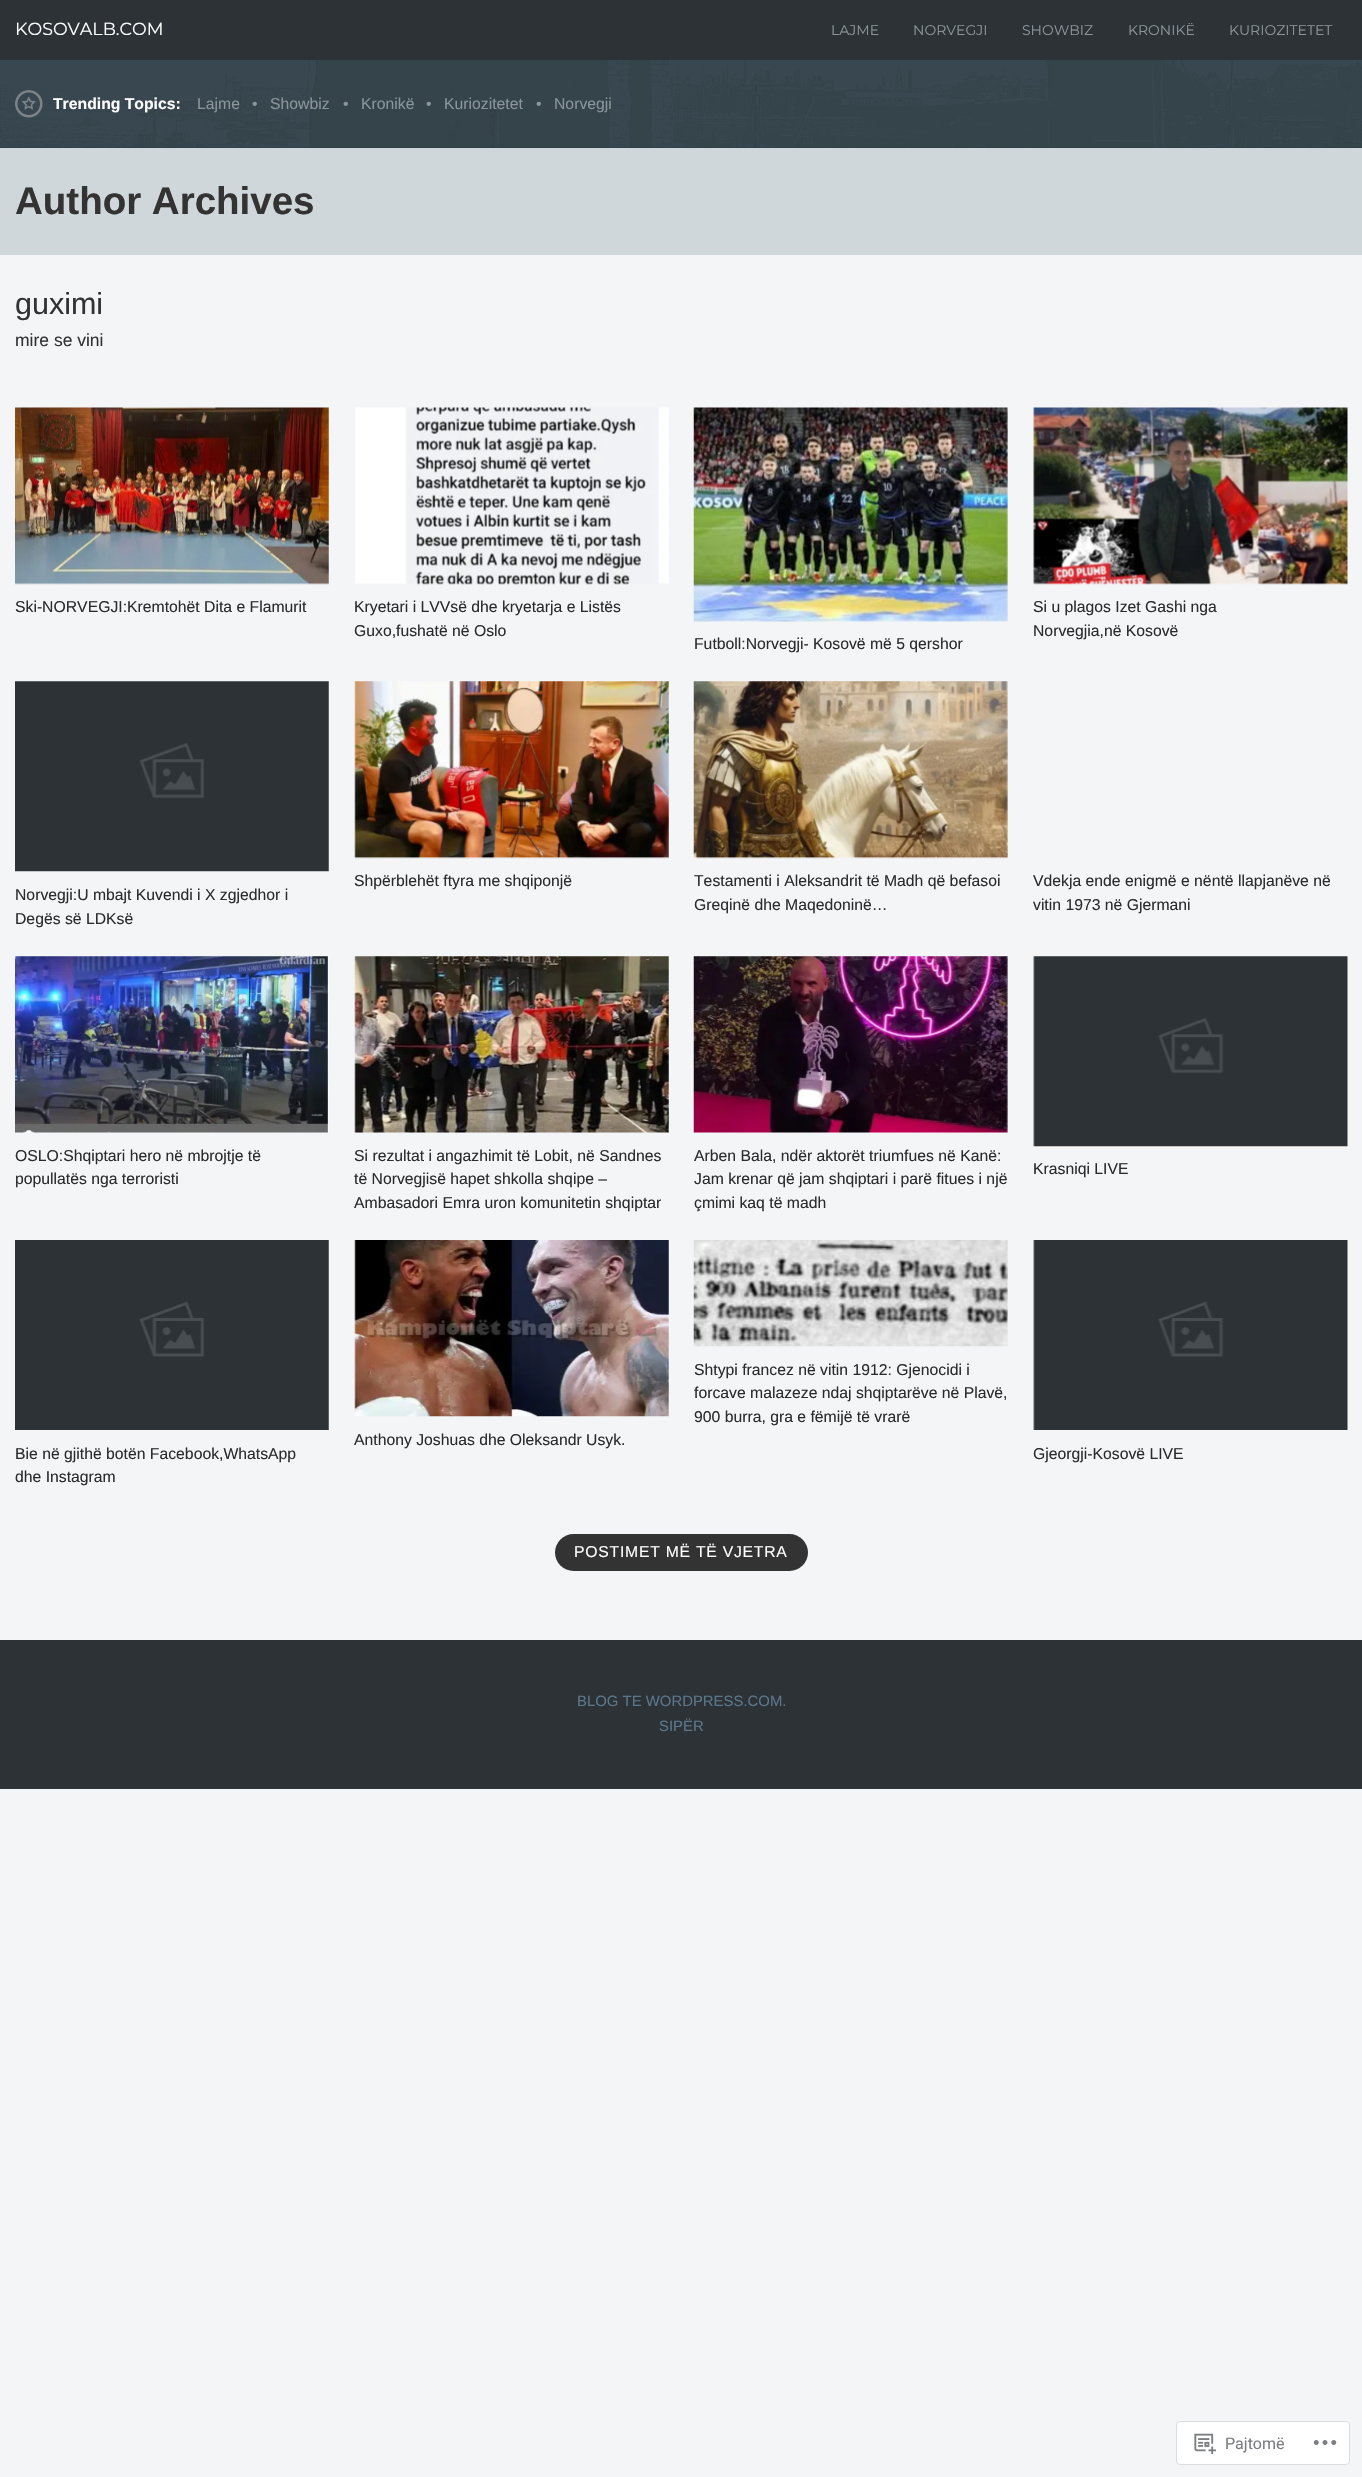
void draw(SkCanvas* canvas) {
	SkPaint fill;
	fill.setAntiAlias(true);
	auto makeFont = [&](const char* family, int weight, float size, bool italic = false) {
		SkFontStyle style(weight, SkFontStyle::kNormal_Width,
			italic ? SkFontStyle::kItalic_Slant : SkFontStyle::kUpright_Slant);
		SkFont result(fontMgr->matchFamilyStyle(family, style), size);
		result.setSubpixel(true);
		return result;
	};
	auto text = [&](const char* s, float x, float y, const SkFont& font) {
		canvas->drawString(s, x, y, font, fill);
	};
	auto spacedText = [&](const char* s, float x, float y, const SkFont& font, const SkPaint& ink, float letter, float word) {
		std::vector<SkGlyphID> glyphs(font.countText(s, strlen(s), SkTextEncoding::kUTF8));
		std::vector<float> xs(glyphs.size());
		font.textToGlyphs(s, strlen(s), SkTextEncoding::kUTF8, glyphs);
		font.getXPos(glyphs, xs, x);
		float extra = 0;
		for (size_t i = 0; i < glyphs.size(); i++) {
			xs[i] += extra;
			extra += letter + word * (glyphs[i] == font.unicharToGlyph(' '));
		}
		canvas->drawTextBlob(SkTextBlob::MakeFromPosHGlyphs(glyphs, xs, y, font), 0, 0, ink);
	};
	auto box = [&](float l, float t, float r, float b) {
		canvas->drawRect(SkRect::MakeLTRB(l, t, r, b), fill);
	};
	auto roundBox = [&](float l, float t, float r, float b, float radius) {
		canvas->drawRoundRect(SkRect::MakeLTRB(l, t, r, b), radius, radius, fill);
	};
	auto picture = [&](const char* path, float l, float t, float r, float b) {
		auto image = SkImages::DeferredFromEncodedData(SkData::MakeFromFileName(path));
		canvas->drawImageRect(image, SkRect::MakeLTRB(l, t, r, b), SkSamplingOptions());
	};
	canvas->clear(0xFFF4F5F6);
	fill.setColor(0xFF2C3236);
	box(0, 0, 1362, 60);
	fill.setColor(0xFF283C46);
	box(0, 147, 1362, 148);
	picture("image0.png", 0, 60, 1362, 148);
	picture("image1.png", 15, 90, 43, 118);
	fill.setColor(0xFFD0D7DB);
	box(0, 148, 1362, 255);
	picture("image2.png", 15, 407, 329, 585);
	picture("image3.png", 355, 407, 669, 585);
	picture("image4.png", 1033, 407, 1348, 585);
	picture("image5.png", 693, 407, 1008, 622);
	picture("image6.png", 15, 681, 329, 872);
	picture("image7.png", 354, 681, 669, 859);
	picture("image8.png", 693, 681, 1008, 859);
	picture("image9.png", 15, 956, 329, 1133);
	picture("image10.png", 354, 956, 669, 1133);
	picture("image11.png", 693, 956, 1008, 1133);
	picture("image12.png", 1033, 956, 1348, 1147);
	picture("image13.png", 693, 1240, 1008, 1347);
	picture("image14.png", 354, 1240, 669, 1417);
	picture("image15.png", 15, 1240, 329, 1430);
	picture("image16.png", 1033, 1240, 1348, 1430);
	fill.setColor(0xFF333333);
	roundBox(555, 1534, 808, 1571, 18.5f);
	fill.setColor(0xFF2C3236);
	box(0, 1640, 1362, 1789);
	fill.setColor(0xFFFFFFFF);
	canvas->drawRoundRect(SkRect::MakeLTRB(1176.5f, 2421.5f, 1349.5f, 2464.5f), 3.5f, 3.5f, fill);
	fill.setStyle(SkPaint::kStroke_Style);
	fill.setStrokeWidth(1);
	fill.setColor(0xFFDCDDDE);
	canvas->drawRoundRect(SkRect::MakeLTRB(1176.5f, 2421.5f, 1349.5f, 2464.5f), 3.5f, 3.5f, fill);
	picture("image17.png", 1194, 2433, 1216, 2455);
	picture("image18.png", 1313, 2440, 1337, 2445);
	auto font1 = makeFont("Montserrat", 400, 17.5f);
	fill.setStyle(SkPaint::kFill_Style);
	fill.setColor(0xFFFFFFFF);
	text("KOSOVALB.COM", 15, 35, font1);
	auto font2 = makeFont("Montserrat", 400, 14);
	fill.setColor(0xFF8B949A);
	text("LAJME", 831, 35, font2);
	text("NORVEGJI", 913, 35, font2);
	text("SHOWBIZ", 1022, 35, font2);
	text("KRONIKË", 1128, 35, font2);
	text("KURIOZITETET", 1229, 35, font2);
	auto font3 = makeFont("Liberation Sans", 700, 15.75f);
	fill.setColor(0xFFFFFFFF);
	text("Trending Topics:", 53, 109, font3);
	auto font4 = makeFont("Liberation Sans", 400, 15.75f);
	fill.setColor(0xFF8B949A);
	text("Lajme", 197, 109, font4);
	text("•", 252, 109, font4);
	text("Showbiz", 270, 109, font4);
	text("•", 343, 109, font4);
	text("Kronikë", 361, 109, font4);
	text("•", 426, 109, font4);
	text("Kuriozitetet", 444, 109, font4);
	text("•", 536, 109, font4);
	text("Norvegji", 554, 109, font4);
	auto font5 = makeFont("Liberation Sans", 700, 38.5f);
	fill.setColor(0xFF333333);
	text("Author Archives", 15, 214, font5);
	auto font6 = makeFont("Liberation Sans", 400, 30.5f);
	text("guximi", 15, 314, font6);
	auto font7 = makeFont("Liberation Sans", 400, 17.5f);
	text("mire se vini", 15, 346, font7);
	fill.setColor(0xFF292B2C);
	text("Ski-NORVEGJI:Kremtohët Dita e Flamurit", 15, 612, font4);
	text("Kryetari i LVVsë dhe kryetarja e Listës", 354, 612, font4);
	text("Guxo,fushatë në Oslo", 354, 636, font4);
	text("Si u plagos Izet Gashi nga", 1033, 612, font4);
	text("Norvegjia,në Kosovë", 1033, 636, font4);
	text("Futboll:Norvegji- Kosovë më 5 qershor", 694, 649, font4);
	text("Norvegji:U mbajt Kuvendi i X zgjedhor i", 15, 900, font4);
	text("Degës së LDKsë", 15, 924, font4);
	text("Shpërblehët ftyra me shqiponjë", 354, 886, font4);
	text("Testamenti i Aleksandrit të Madh që befasoi", 694, 886, font4);
	text("Greqinë dhe Maqedoninë…", 694, 910, font4);
	text("Vdekja ende enigmë e nëntë llapjanëve në", 1033, 886, font4);
	text("vitin 1973 në Gjermani", 1033, 910, font4);
	text("OSLO:Shqiptari hero në mbrojtje të", 15, 1161, font4);
	text("popullatës nga terroristi", 15, 1184, font4);
	text("Si rezultat i angazhimit të Lobit, në Sandnes", 354, 1161, font4);
	text("të Norvegjisë hapet shkolla shqipe –", 354, 1184, font4);
	text("Ambasadori Emra uron komunitetin shqiptar", 354, 1208, font4);
	text("Arben Bala, ndër aktorët triumfues në Kanë:", 694, 1161, font4);
	text("Jam krenar që jam shqiptari i parë fitues i një", 694, 1184, font4);
	text("çmimi kaq të madh", 694, 1208, font4);
	text("Krasniqi LIVE", 1033, 1174, font4);
	text("Shtypi francez në vitin 1912: Gjenocidi i", 694, 1375, font4);
	text("forcave malazeze ndaj shqiptarëve në Plavë,", 694, 1398, font4);
	text("900 burra, gra e fëmijë të vrarë", 694, 1422, font4);
	text("Anthony Joshuas dhe Oleksandr Usyk.", 354, 1445, font4);
	text("Bie në gjithë botën Facebook,WhatsApp", 15, 1459, font4);
	text("dhe Instagram", 15, 1482, font4);
	text("Gjeorgji-Kosovë LIVE", 1033, 1459, font4);
	fill.setColor(0xFFFFFFFF);
	spacedText("POSTIMET MË TË VJETRA", 574, 1557, font4, fill, 0.75f, 0);
	auto font8 = makeFont("Liberation Sans", 400, 14.9f);
	fill.setColor(0xFF5B768A);
	text("BLOG TE WORDPRESS.COM.", 577, 1706, font8);
	text("SIPËR", 659, 1731, font8);
	auto font9 = makeFont("Roboto", 400, 16);
	fill.setColor(0xFF7A7E84);
	text("Pajtomë", 1225, 2449, font9);
}
